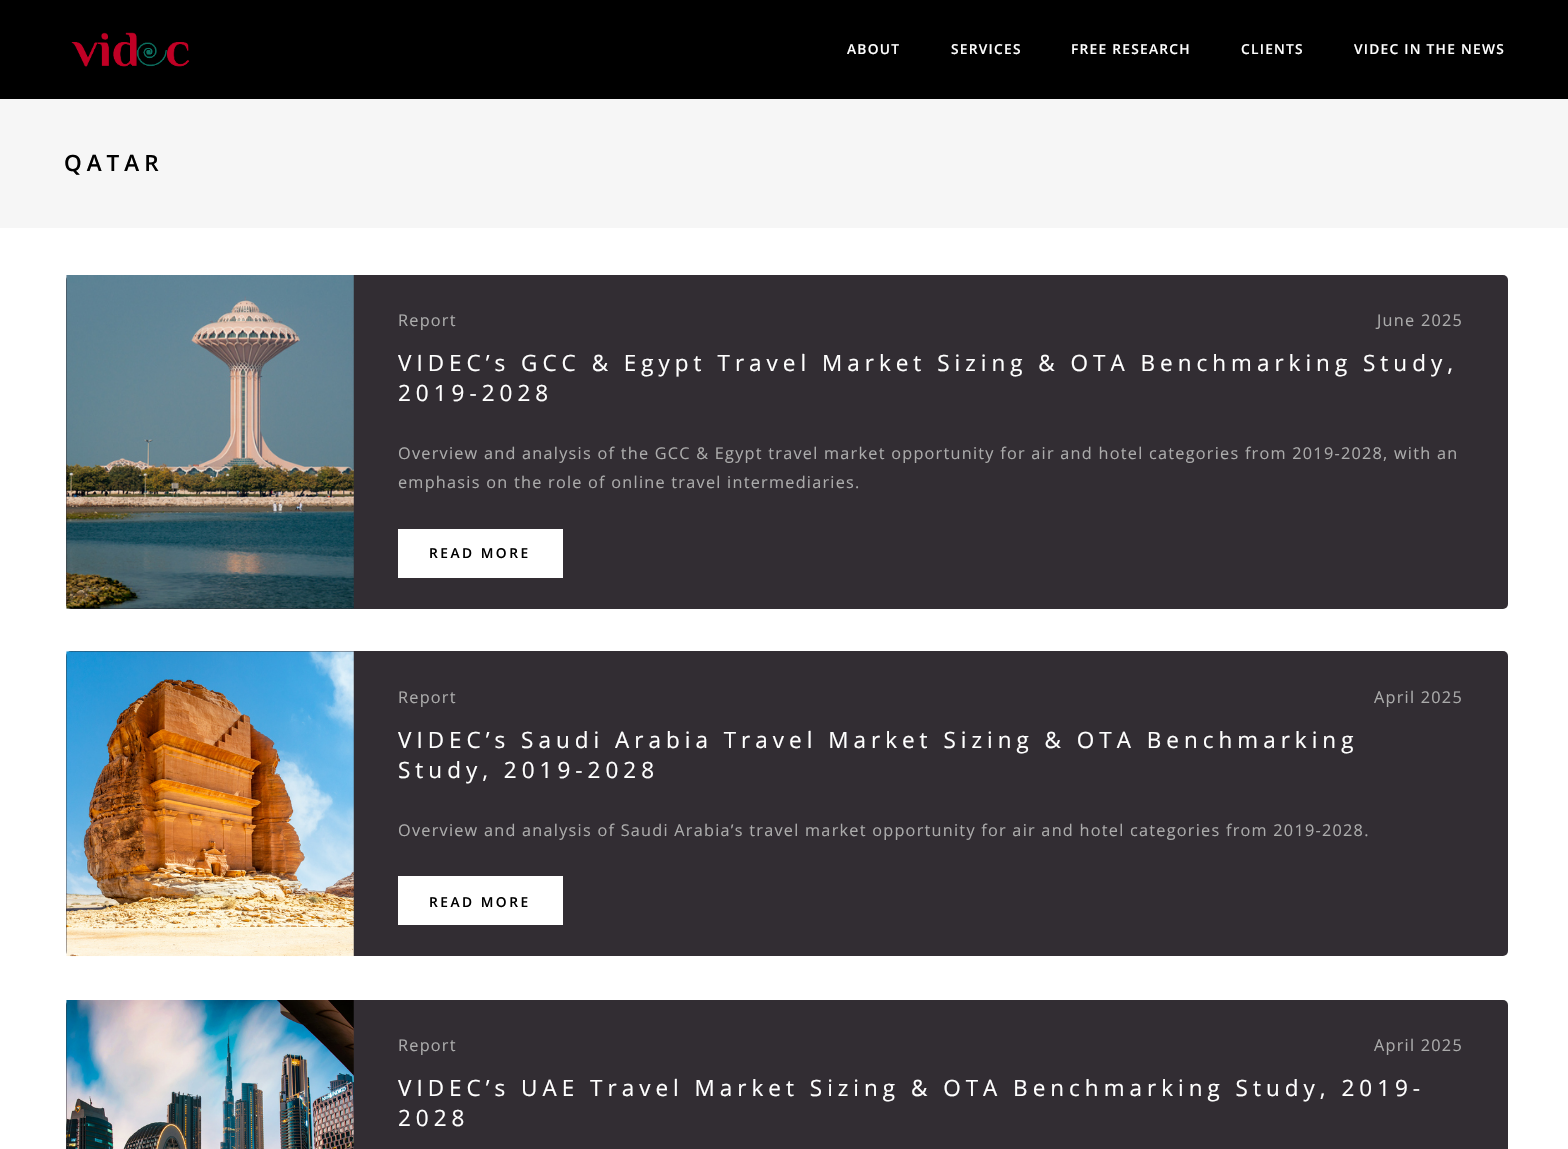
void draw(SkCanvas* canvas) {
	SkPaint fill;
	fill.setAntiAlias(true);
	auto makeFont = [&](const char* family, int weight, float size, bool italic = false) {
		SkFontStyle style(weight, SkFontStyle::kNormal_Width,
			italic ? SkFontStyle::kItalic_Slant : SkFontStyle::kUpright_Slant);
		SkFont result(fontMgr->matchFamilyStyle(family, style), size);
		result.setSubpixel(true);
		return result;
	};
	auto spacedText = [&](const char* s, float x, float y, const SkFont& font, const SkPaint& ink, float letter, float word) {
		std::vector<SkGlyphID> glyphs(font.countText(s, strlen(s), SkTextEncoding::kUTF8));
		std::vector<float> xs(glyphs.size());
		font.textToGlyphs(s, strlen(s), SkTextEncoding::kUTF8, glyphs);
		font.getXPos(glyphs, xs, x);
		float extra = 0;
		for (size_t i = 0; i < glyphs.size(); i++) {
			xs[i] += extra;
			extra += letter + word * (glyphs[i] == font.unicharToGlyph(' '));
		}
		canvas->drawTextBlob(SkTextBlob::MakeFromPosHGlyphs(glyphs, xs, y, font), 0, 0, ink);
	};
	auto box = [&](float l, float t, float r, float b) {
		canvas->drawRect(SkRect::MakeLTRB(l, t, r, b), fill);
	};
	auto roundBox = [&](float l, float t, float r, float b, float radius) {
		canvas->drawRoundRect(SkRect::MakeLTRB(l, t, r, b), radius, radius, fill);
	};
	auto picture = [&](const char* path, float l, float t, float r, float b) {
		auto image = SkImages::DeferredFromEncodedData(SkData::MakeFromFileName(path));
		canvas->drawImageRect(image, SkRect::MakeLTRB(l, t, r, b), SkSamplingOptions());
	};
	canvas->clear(0xFFFFFFFF);
	fill.setColor(0xFF000000);
	box(0, 0, 1568, 99);
	picture("image0.png", 71, 32, 190, 67);
	fill.setColor(0xFFF6F6F6);
	box(0, 99, 1568, 228);
	fill.setColor(0xFF322D33);
	roundBox(66, 275, 1508, 609, 5);
	picture("image1.png", 66, 275, 354, 609);
	fill.setColor(0xFFFFFFFF);
	box(398, 529, 563, 578);
	fill.setColor(0xFF322D33);
	roundBox(66, 651, 1508, 956, 5);
	picture("image2.png", 66, 651, 354, 957);
	fill.setColor(0xFFFFFFFF);
	box(398, 876, 563, 925);
	fill.setColor(0xFF322D33);
	roundBox(66, 1000, 1508, 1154, 5);
	picture("image3.png", 66, 1000, 354, 1149);
	auto font1 = makeFont("Open Sans", 600, 13.75f);
	fill.setColor(0xFFFFFFFF);
	spacedText("ABOUT", 847, 54, font1, fill, 1.25f, 0);
	spacedText("SERVICES", 951, 54, font1, fill, 1.25f, 0);
	spacedText("FREE RESEARCH", 1071, 54, font1, fill, 1.25f, 0);
	spacedText("CLIENTS", 1241, 54, font1, fill, 1.25f, 0);
	spacedText("VIDEC IN THE NEWS", 1354, 54, font1, fill, 1.25f, 0);
	auto font2 = makeFont("Open Sans", 600, 22.5f);
	fill.setColor(0xFF000000);
	spacedText("QATAR", 64, 171, font2, fill, 5, 0);
	auto font3 = makeFont("Open Sans", 400, 16.25f);
	fill.setColor(0xFFABABAB);
	spacedText("Report", 398, 326, font3, fill, 1.25f, 0);
	spacedText("June 2025", 1377, 326, font3, fill, 1.25f, 0);
	auto font4 = makeFont("Open Sans", 400, 22.5f);
	fill.setColor(0xFFFFFFFF);
	spacedText("VIDEC’s GCC & Egypt Travel Market Sizing & OTA Benchmarking Study,", 398, 371, font4, fill, 5, 0);
	spacedText("2019-2028", 398, 401, font4, fill, 5, 0);
	fill.setColor(0xFFABABAB);
	spacedText("Overview and analysis of the GCC & Egypt travel market opportunity for air and hotel categories from 2019-2028, with an", 398, 459, font3, fill, 1.25f, 0);
	spacedText("emphasis on the role of online travel intermediaries.", 398, 488, font3, fill, 1.25f, 0);
	fill.setColor(0xFF000000);
	spacedText("READ MORE", 429, 558, font1, fill, 2.5f, 0);
	fill.setColor(0xFFABABAB);
	spacedText("Report", 398, 703, font3, fill, 1.25f, 0);
	spacedText("April 2025", 1374, 703, font3, fill, 1.25f, 0);
	fill.setColor(0xFFFFFFFF);
	spacedText("VIDEC’s Saudi Arabia Travel Market Sizing & OTA Benchmarking", 398, 748, font4, fill, 5, 0);
	spacedText("Study, 2019-2028", 398, 778, font4, fill, 5, 0);
	fill.setColor(0xFFABABAB);
	spacedText("Overview and analysis of Saudi Arabia’s travel market opportunity for air and hotel categories from 2019-2028.", 398, 836, font3, fill, 1.25f, 0);
	fill.setColor(0xFF000000);
	spacedText("READ MORE", 429, 907, font1, fill, 2.5f, 0);
	fill.setColor(0xFFABABAB);
	spacedText("Report", 398, 1051, font3, fill, 1.25f, 0);
	spacedText("April 2025", 1374, 1051, font3, fill, 1.25f, 0);
	fill.setColor(0xFFFFFFFF);
	spacedText("VIDEC’s UAE Travel Market Sizing & OTA Benchmarking Study, 2019-", 398, 1096, font4, fill, 5, 0);
	spacedText("2028", 398, 1126, font4, fill, 5, 0);
}
